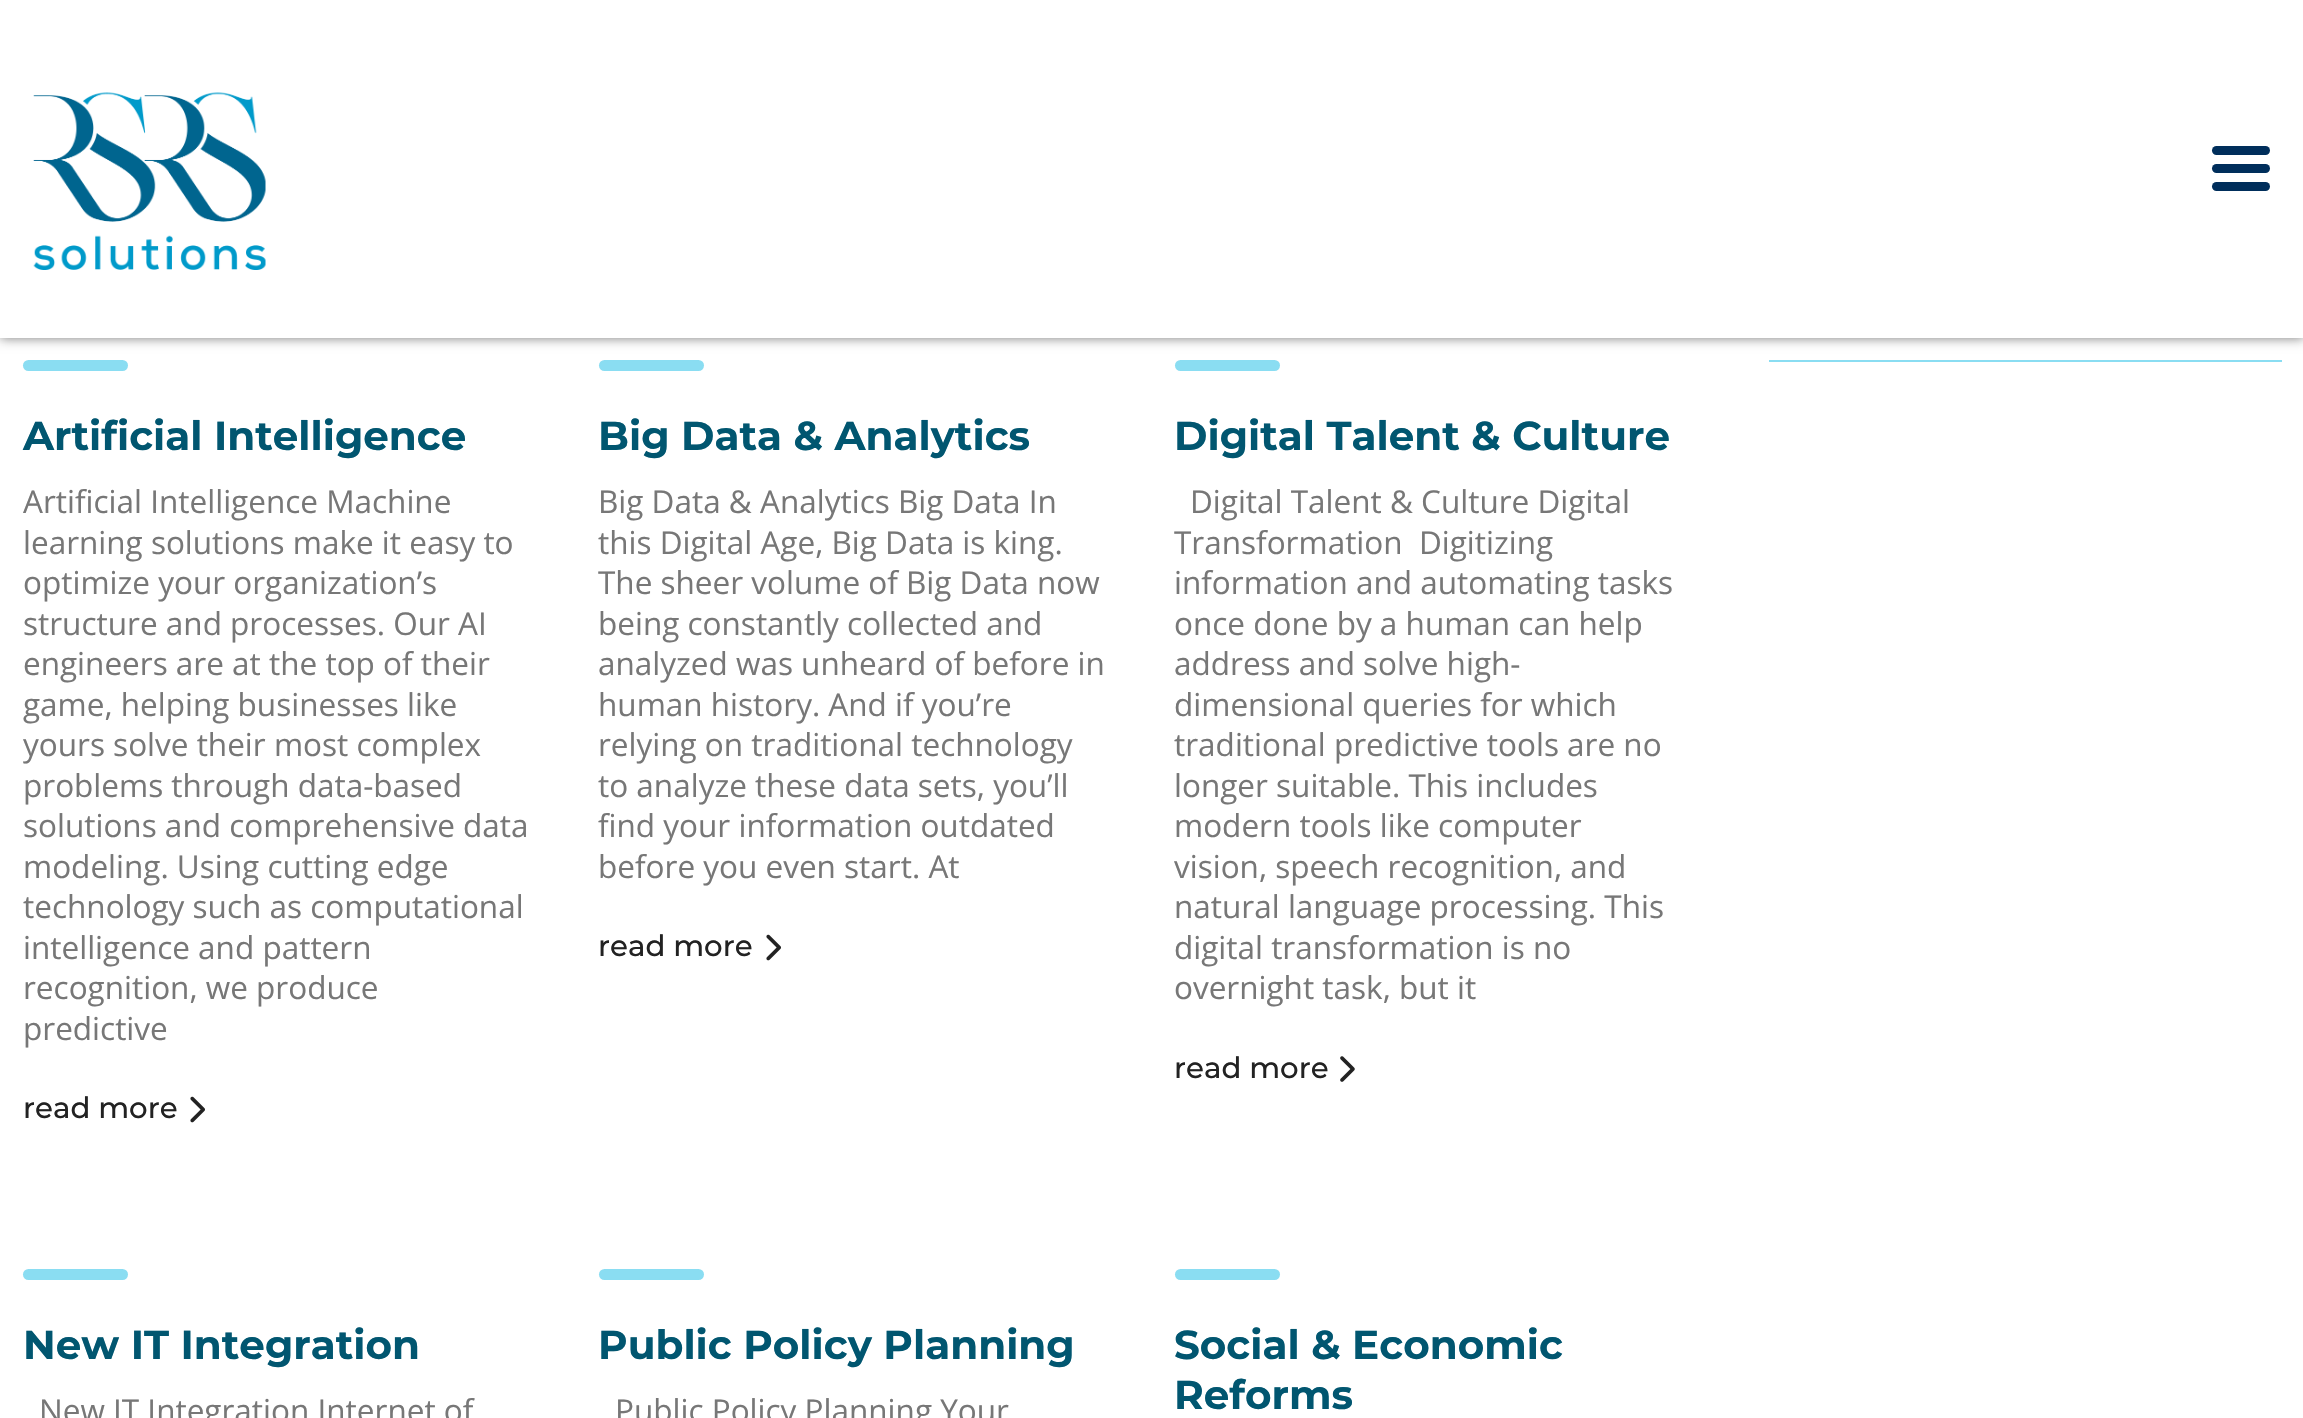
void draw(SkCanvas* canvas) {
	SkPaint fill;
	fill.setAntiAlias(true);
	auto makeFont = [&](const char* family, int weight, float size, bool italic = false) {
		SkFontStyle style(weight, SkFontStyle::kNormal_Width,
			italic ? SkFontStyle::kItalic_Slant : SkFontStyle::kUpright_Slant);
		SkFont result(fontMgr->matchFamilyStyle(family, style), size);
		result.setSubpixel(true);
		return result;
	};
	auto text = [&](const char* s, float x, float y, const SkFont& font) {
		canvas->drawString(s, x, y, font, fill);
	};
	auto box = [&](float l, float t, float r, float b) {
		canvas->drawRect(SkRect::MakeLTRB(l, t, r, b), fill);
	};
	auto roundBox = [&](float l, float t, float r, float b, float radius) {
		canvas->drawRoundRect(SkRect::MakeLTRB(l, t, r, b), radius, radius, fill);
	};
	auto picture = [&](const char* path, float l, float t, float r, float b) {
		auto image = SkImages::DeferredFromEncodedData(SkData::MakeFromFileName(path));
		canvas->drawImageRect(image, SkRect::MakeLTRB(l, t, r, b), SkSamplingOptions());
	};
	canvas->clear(0xFFFFFFFF);
	fill.setColor(0x85000000);
	fill.setMaskFilter(SkMaskFilter::MakeBlur(kNormal_SkBlurStyle, 5.5f));
	canvas->drawRect(SkRect::MakeLTRB(0, 0, 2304, 338), fill);
	fill.setMaskFilter(nullptr);
	fill.setColor(0xFFFFFFFF);
	box(0, 0, 2303, 338);
	picture("image0.png", 33, 92, 266, 270);
	fill.setColor(0xFF002E5B);
	roundBox(2212, 164, 2270, 173, 4.5f);
	roundBox(2212, 146, 2270, 155, 4.5f);
	roundBox(2212, 182, 2270, 191, 4.5f);
	fill.setColor(0xFF8ADDF2);
	box(1769, 360, 2282, 362);
	roundBox(23, 360, 128, 371, 5.5f);
	picture("image1.png", 190, 1096, 205, 1123);
	roundBox(599, 360, 704, 371, 5.5f);
	picture("image1.png", 766, 934, 781, 961);
	roundBox(1175, 360, 1280, 371, 5.5f);
	picture("image2.png", 1340, 1056, 1355, 1082);
	roundBox(23, 1269, 128, 1280, 5.5f);
	roundBox(599, 1269, 704, 1280, 5.5f);
	roundBox(1175, 1269, 1280, 1280, 5.5f);
	auto font1 = makeFont("Montserrat", 700, 40.5f);
	fill.setColor(0xFF015670);
	text("Artificial Intelligence", 23, 450, font1);
	auto font2 = makeFont("Open Sans", 400, 31.5f);
	fill.setColor(0xFF777777);
	text("Artificial Intelligence Machine", 23, 513, font2);
	text("learning solutions make it easy to", 23, 554, font2);
	text("optimize your organization’s", 23, 594, font2);
	text("structure and processes. Our AI", 23, 635, font2);
	text("engineers are at the top of their", 23, 675, font2);
	text("game, helping businesses like", 23, 716, font2);
	text("yours solve their most complex", 23, 756, font2);
	text("problems through data-based", 23, 797, font2);
	text("solutions and comprehensive data", 23, 837, font2);
	text("modeling. Using cutting edge", 23, 878, font2);
	text("technology such as computational", 23, 918, font2);
	text("intelligence and pattern", 23, 959, font2);
	text("recognition, we produce", 23, 999, font2);
	text("predictive", 23, 1040, font2);
	auto font3 = makeFont("Montserrat", 500, 29.25f);
	fill.setColor(0xFF222222);
	text("read more", 23, 1118, font3);
	fill.setColor(0xFF015670);
	text("Big Data & Analytics", 598, 450, font1);
	fill.setColor(0xFF777777);
	text("Big Data & Analytics Big Data In", 598, 513, font2);
	text("this Digital Age, Big Data is king.", 598, 554, font2);
	text("The sheer volume of Big Data now", 598, 594, font2);
	text("being constantly collected and", 598, 635, font2);
	text("analyzed was unheard of before in", 598, 675, font2);
	text("human history. And if you’re", 598, 716, font2);
	text("relying on traditional technology", 598, 756, font2);
	text("to analyze these data sets, you’ll", 598, 797, font2);
	text("find your information outdated", 598, 837, font2);
	text("before you even start. At", 598, 878, font2);
	fill.setColor(0xFF222222);
	text("read more", 598, 956, font3);
	fill.setColor(0xFF015670);
	text("Digital Talent & Culture", 1174, 450, font1);
	fill.setColor(0xFF777777);
	text("Digital Talent & Culture Digital", 1190, 513, font2);
	text("Transformation  Digitizing", 1174, 554, font2);
	text("information and automating tasks", 1174, 594, font2);
	text("once done by a human can help", 1174, 635, font2);
	text("address and solve high-", 1174, 675, font2);
	text("dimensional queries for which", 1174, 716, font2);
	text("traditional predictive tools are no", 1174, 756, font2);
	text("longer suitable. This includes", 1174, 797, font2);
	text("modern tools like computer", 1174, 837, font2);
	text("vision, speech recognition, and", 1174, 878, font2);
	text("natural language processing. This", 1174, 918, font2);
	text("digital transformation is no", 1174, 959, font2);
	text("overnight task, but it", 1174, 999, font2);
	fill.setColor(0xFF222222);
	text("read more", 1174, 1078, font3);
	fill.setColor(0xFF015670);
	text("New IT Integration", 23, 1359, font1);
	fill.setColor(0xFF777777);
	text("New IT Integration Internet of", 39, 1422, font2);
	fill.setColor(0xFF015670);
	text("Public Policy Planning", 598, 1359, font1);
	fill.setColor(0xFF777777);
	text("Public Policy Planning Your", 615, 1422, font2);
	fill.setColor(0xFF015670);
	text("Social & Economic", 1174, 1359, font1);
	text("Reforms", 1174, 1409, font1);
}
